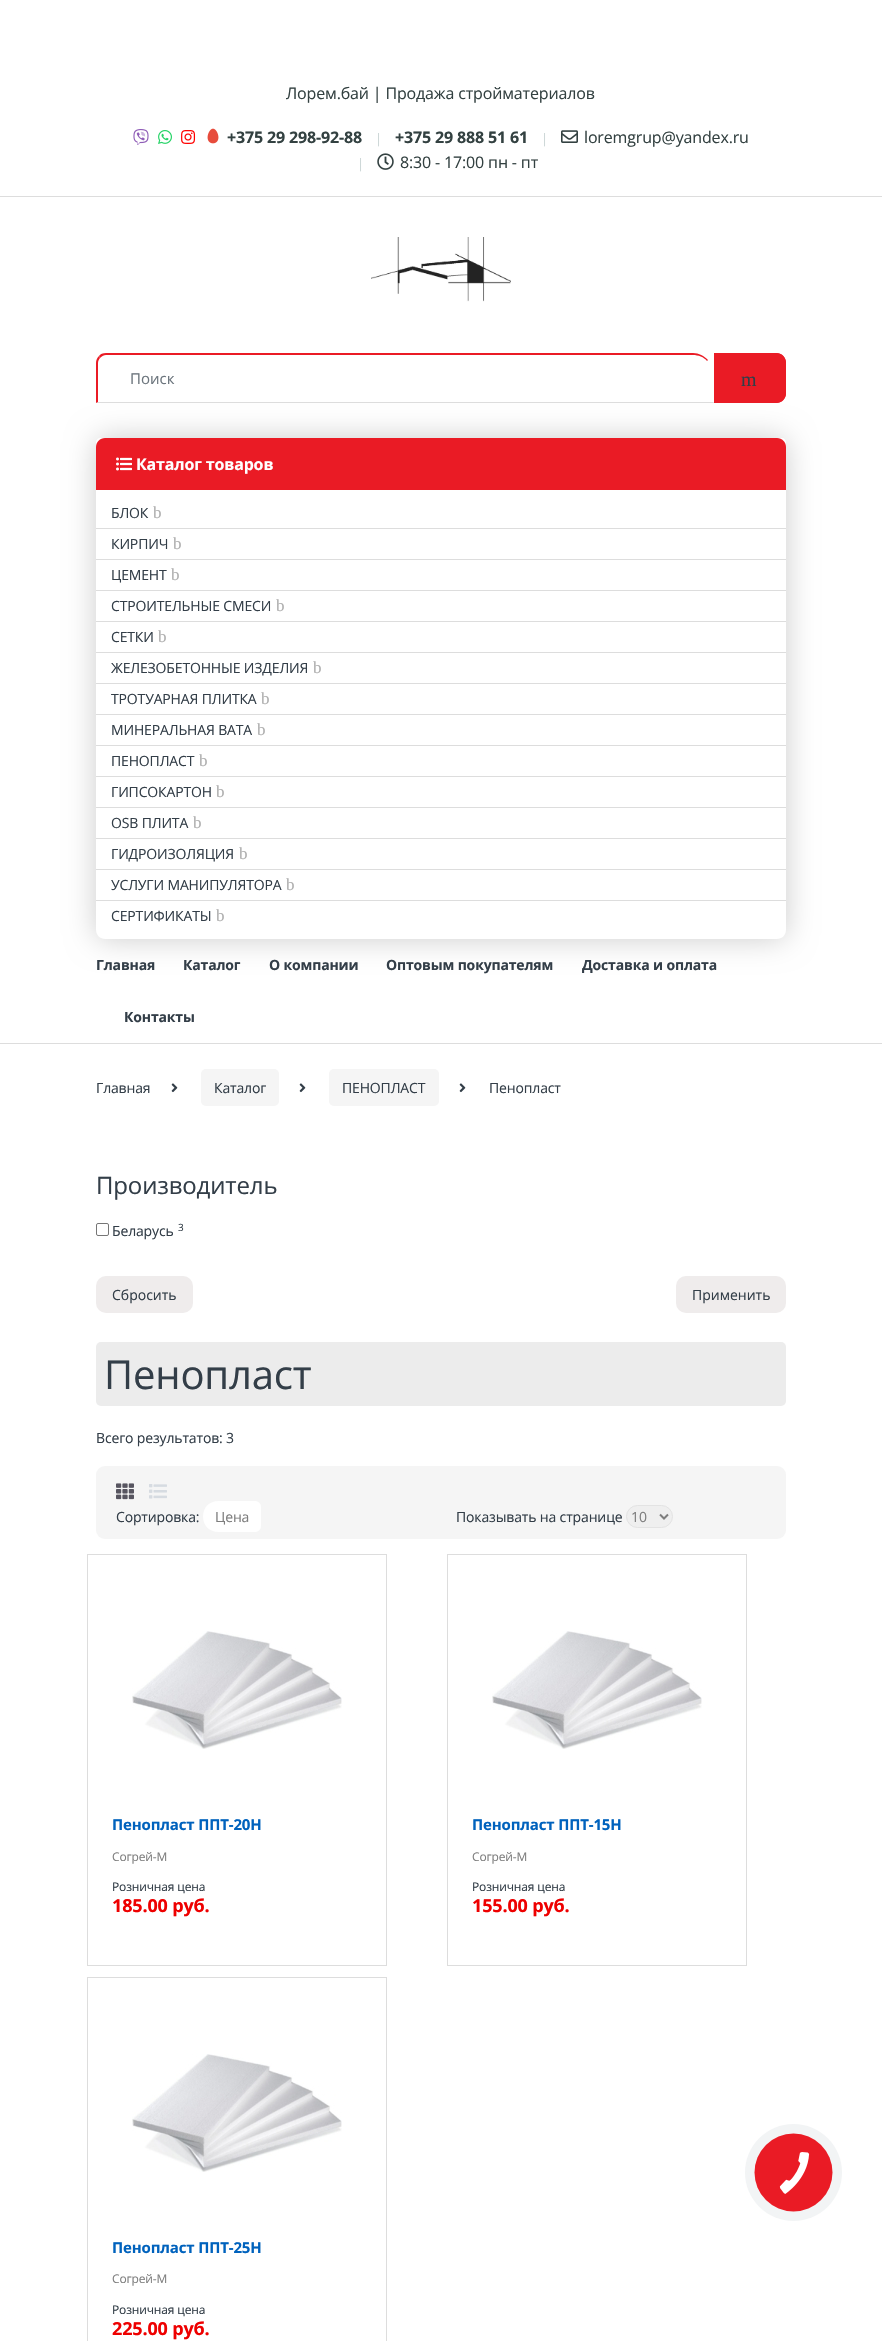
void draw(SkCanvas* canvas) {
	SkPaint fill;
	fill.setAntiAlias(true);
	auto makeFont = [&](const char* family, int weight, float size, bool italic = false) {
		SkFontStyle style(weight, SkFontStyle::kNormal_Width,
			italic ? SkFontStyle::kItalic_Slant : SkFontStyle::kUpright_Slant);
		SkFont result(fontMgr->matchFamilyStyle(family, style), size);
		result.setSubpixel(true);
		return result;
	};
	auto text = [&](const char* s, float x, float y, const SkFont& font) {
		canvas->drawString(s, x, y, font, fill);
	};
	auto spacedText = [&](const char* s, float x, float y, const SkFont& font, const SkPaint& ink, float letter, float word) {
		std::vector<SkGlyphID> glyphs(font.countText(s, strlen(s), SkTextEncoding::kUTF8));
		std::vector<float> xs(glyphs.size());
		font.textToGlyphs(s, strlen(s), SkTextEncoding::kUTF8, glyphs);
		font.getXPos(glyphs, xs, x);
		float extra = 0;
		for (size_t i = 0; i < glyphs.size(); i++) {
			xs[i] += extra;
			extra += letter + word * (glyphs[i] == font.unicharToGlyph(' '));
		}
		canvas->drawTextBlob(SkTextBlob::MakeFromPosHGlyphs(glyphs, xs, y, font), 0, 0, ink);
	};
	auto box = [&](float l, float t, float r, float b) {
		canvas->drawRect(SkRect::MakeLTRB(l, t, r, b), fill);
	};
	auto roundBox = [&](float l, float t, float r, float b, float radius) {
		canvas->drawRoundRect(SkRect::MakeLTRB(l, t, r, b), radius, radius, fill);
	};
	auto picture = [&](const char* path, float l, float t, float r, float b) {
		auto image = SkImages::DeferredFromEncodedData(SkData::MakeFromFileName(path));
		canvas->drawImageRect(image, SkRect::MakeLTRB(l, t, r, b), SkSamplingOptions());
	};
	canvas->clear(0xFFFFFFFF);
	fill.setColor(0xFFDDDDDD);
	box(0, 196, 882, 197);
	picture("image0.png", 133, 129, 149, 145);
	picture("image1.png", 158, 130, 172, 144);
	picture("image2.png", 181, 130, 196, 144);
	picture("image3.png", 207, 128, 219, 144);
	picture("image4.png", 561, 130, 578, 143);
	picture("image5.png", 377, 153, 394, 170);
	box(0, 1043, 882, 1044);
	picture("image6.png", 371, 237, 511, 302);
	fill.setColor(0xFFEA1B25);
	canvas->drawPath(SkPathBuilder().moveTo(106, 353).cubicTo(103, 353, 100, 354, 99, 356).lineTo(100, 358).cubicTo(102, 356, 104, 355, 106, 355).lineTo(693, 355).cubicTo(698, 355, 704, 357, 707, 361).lineTo(708, 360).cubicTo(704, 356, 699, 353, 693, 353).close().detach(), fill);
	fill.setColor(0xFFDDDDDD);
	canvas->drawPath(SkPathBuilder().moveTo(715, 403).lineTo(713, 402).lineTo(98, 402).lineTo(96, 403).close().detach(), fill);
	fill.setColor(0xFFEA1B25);
	canvas->drawPath(SkPathBuilder().moveTo(96, 403).lineTo(98, 402).lineTo(98, 363).cubicTo(98, 361, 99, 359, 100, 358).lineTo(99, 356).cubicTo(97, 358, 96, 360, 96, 363).close().detach(), fill);
	canvas->drawPath(SkPathBuilder().moveTo(714, 353).lineTo(776, 353).cubicTo(781.5f, 353, 786, 357.5f, 786, 363).lineTo(786, 393).cubicTo(786, 398.5f, 781.5f, 403, 776, 403).lineTo(714, 403).close().detach(), fill);
	canvas->drawPath(SkPathBuilder(SkPathFillType::kEvenOdd).moveTo(714, 353).lineTo(776, 353).cubicTo(782, 353, 786, 357, 786, 363).lineTo(786, 393).cubicTo(786, 399, 782, 403, 776, 403).lineTo(714, 403).close().moveTo(714, 355).lineTo(776, 355).cubicTo(780, 355, 784, 359, 784, 363).lineTo(784, 393).cubicTo(784, 397, 780, 401, 776, 401).lineTo(714, 401).close().detach(), fill);
	fill.setColor(0xFFCCCCCC);
	fill.setMaskFilter(SkMaskFilter::MakeBlur(kNormal_SkBlurStyle, 15));
	canvas->drawRoundRect(SkRect::MakeLTRB(96, 438, 786, 939), 9, 9, fill);
	fill.setMaskFilter(nullptr);
	fill.setColor(0xFFFFFFFF);
	canvas->drawPath(SkPathBuilder().moveTo(100, 438).lineTo(782, 438).cubicTo(784, 438, 786, 440, 786, 442).lineTo(786, 930).cubicTo(786, 935, 782, 939, 777, 939).lineTo(105, 939).cubicTo(100, 939, 96, 935, 96, 930).lineTo(96, 442).cubicTo(96, 440, 98, 438, 100, 438).close().detach(), fill);
	fill.setColor(0xFFEA1B25);
	canvas->drawPath(SkPathBuilder().moveTo(105, 438).lineTo(777, 438).cubicTo(782, 438, 786, 442, 786, 447).lineTo(786, 490).lineTo(96, 490).lineTo(96, 447).cubicTo(96, 442, 100, 438, 105, 438).close().detach(), fill);
	picture("image7.png", 116, 457, 132, 471);
	fill.setColor(0xFFDDDDDD);
	box(96, 528, 786, 529);
	box(96, 559, 786, 560);
	box(96, 590, 786, 591);
	box(96, 621, 786, 622);
	box(96, 652, 786, 653);
	box(96, 683, 786, 684);
	box(96, 714, 786, 715);
	box(96, 745, 786, 746);
	box(96, 776, 786, 777);
	box(96, 807, 786, 808);
	box(96, 838, 786, 839);
	box(96, 869, 786, 870);
	box(96, 900, 786, 901);
	picture("image8.png", 171, 1083, 178, 1093);
	fill.setColor(0xFFF5F5F5);
	roundBox(201, 1069, 279, 1106, 5);
	picture("image8.png", 299, 1083, 306, 1093);
	roundBox(329, 1069, 439, 1106, 5);
	picture("image8.png", 459, 1083, 466, 1093);
	fill.setStyle(SkPaint::kStroke_Style);
	fill.setStrokeWidth(1);
	fill.setColor(0xFF767676);
	canvas->drawRoundRect(SkRect::MakeLTRB(96.5f, 1223.5f, 108.5f, 1235.5f), 1.5f, 1.5f, fill);
	fill.setStyle(SkPaint::kFill_Style);
	fill.setColor(0xFFEFECEC);
	roundBox(96, 1276, 193, 1313, 10);
	roundBox(676, 1276, 786, 1313, 10);
	fill.setColor(0xFFECECEC);
	roundBox(96, 1342, 786, 1406, 5);
	fill.setColor(0xFFF5F5F5);
	roundBox(96, 1466, 786, 1539, 9);
	picture("image9.png", 116, 1483, 134, 1500);
	picture("image10.png", 149, 1484, 167, 1499);
	fill.setColor(0xFFFFFFFF);
	canvas->drawPath(SkPathBuilder().moveTo(218, 1501).lineTo(249, 1501).lineTo(249, 1532).lineTo(218, 1532).cubicTo(209.5f, 1532, 203, 1525.5f, 203, 1517).lineTo(203, 1516).cubicTo(203, 1507.5f, 209.5f, 1501, 218, 1501).close().detach(), fill);
	canvas->drawPath(SkPathBuilder().moveTo(249, 1501).lineTo(255, 1501).cubicTo(258.5f, 1501, 261, 1503.5f, 261, 1507).lineTo(261, 1526).cubicTo(261, 1529.5f, 258.5f, 1532, 255, 1532).lineTo(249, 1532).close().detach(), fill);
	fill.setColor(0xFFEFEFEF);
	canvas->drawRoundRect(SkRect::MakeLTRB(626.5f, 1505.5f, 672.5f, 1527.5f), 11, 11, fill);
	fill.setStyle(SkPaint::kStroke_Style);
	fill.setColor(0xFFE3E3E3);
	canvas->drawRoundRect(SkRect::MakeLTRB(626.5f, 1505.5f, 672.5f, 1527.5f), 11, 11, fill);
	fill.setStrokeWidth(2);
	fill.setColor(0xFF7E7E7E);
	canvas->drawPath(SkPathBuilder().moveTo(660, 1514.5f).lineTo(664, 1518.5f).lineTo(668, 1514.5f).detach(), fill);
	fill.setStrokeWidth(1);
	fill.setColor(0xFFDDDDDD);
	canvas->drawRect(SkRect::MakeLTRB(87.5f, 1554.5f, 386.5f, 1965.5f), fill);
	picture("image11.png", 132, 1631, 342, 1749);
	canvas->drawRect(SkRect::MakeLTRB(447.5f, 1554.5f, 746.5f, 1965.5f), fill);
	picture("image11.png", 492, 1631, 702, 1749);
	canvas->drawRect(SkRect::MakeLTRB(87.5f, 1977.5f, 386.5f, 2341.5f), fill);
	picture("image11.png", 132, 2054, 342, 2172);
	fill.setStyle(SkPaint::kFill_Style);
	fill.setColor(0xFFF2F4F5);
	canvas->drawCircle(793.5f, 2172.5f, 48.5f, fill);
	fill.setColor(0xFFEA1B25);
	canvas->drawCircle(793.5f, 2172.5f, 39, fill);
	picture("image12.png", 779, 2152, 810, 2194);
	auto font1 = makeFont("Open Sans", 400, 16);
	fill.setColor(0xFF334141);
	spacedText("Лорем.бай | Продажа стройматериалов", 286, 99, font1, fill, -0.15f, 0);
	auto font2 = makeFont("Open Sans", 700, 16);
	spacedText("+375 29 298-92-88", 227, 143, font2, fill, -0.15f, 0);
	auto font3 = makeFont("Open Sans", 400, 13);
	fill.setColor(0xFFCAD5D5);
	spacedText("|", 375, 143, font3, fill, -0.15f, 0);
	fill.setColor(0xFF334141);
	spacedText("+375 29 888 51 61", 395, 143, font2, fill, -0.15f, 0);
	fill.setColor(0xFFCAD5D5);
	spacedText("|", 541, 143, font3, fill, -0.15f, 0);
	fill.setColor(0xFF334141);
	spacedText("loremgrup@yandex.ru", 584, 143, font1, fill, -0.15f, 0);
	fill.setColor(0xFFCAD5D5);
	spacedText("|", 357, 168, font3, fill, -0.15f, 0);
	fill.setColor(0xFF334141);
	spacedText("8:30 - 17:00 пн - пт", 400, 168, font1, fill, -0.15f, 0);
	auto font4 = makeFont("Open Sans", 400, 15);
	fill.setColor(0xFF6C757D);
	text("Поиск", 130, 384, font4);
	auto font5 = makeFont("Liberation Serif", 400, 20);
	fill.setColor(0xFF333E48);
	text("m", 741, 386, font5);
	fill.setColor(0xFFFFFFFF);
	spacedText("Каталог товаров", 136, 470, font2, fill, -0.15f, 0);
	auto font6 = makeFont("Open Sans", 400, 14);
	fill.setColor(0xFF333E48);
	spacedText("БЛОК", 111, 518, font6, fill, -0.15f, 0);
	auto font7 = makeFont("Liberation Serif", 400, 17);
	fill.setColor(0xFFAEAEAE);
	spacedText("b", 153, 518, font7, fill, -0.15f, 0);
	fill.setColor(0xFF333E48);
	spacedText("КИРПИЧ", 111, 549, font6, fill, -0.15f, 0);
	fill.setColor(0xFFAEAEAE);
	spacedText("b", 173, 549, font7, fill, -0.15f, 0);
	fill.setColor(0xFF333E48);
	spacedText("ЦЕМЕНТ", 111, 580, font6, fill, -0.15f, 0);
	fill.setColor(0xFFAEAEAE);
	spacedText("b", 171, 580, font7, fill, -0.15f, 0);
	fill.setColor(0xFF333E48);
	spacedText("СТРОИТЕЛЬНЫЕ СМЕСИ", 111, 611, font6, fill, -0.15f, 0);
	fill.setColor(0xFFAEAEAE);
	spacedText("b", 276, 611, font7, fill, -0.15f, 0);
	fill.setColor(0xFF333E48);
	spacedText("СЕТКИ", 111, 642, font6, fill, -0.15f, 0);
	fill.setColor(0xFFAEAEAE);
	spacedText("b", 158, 642, font7, fill, -0.15f, 0);
	fill.setColor(0xFF333E48);
	spacedText("ЖЕЛЕЗОБЕТОННЫЕ ИЗДЕЛИЯ", 111, 673, font6, fill, -0.15f, 0);
	fill.setColor(0xFFAEAEAE);
	spacedText("b", 313, 673, font7, fill, -0.15f, 0);
	fill.setColor(0xFF333E48);
	spacedText("ТРОТУАРНАЯ ПЛИТКА", 111, 704, font6, fill, -0.15f, 0);
	fill.setColor(0xFFAEAEAE);
	spacedText("b", 261, 704, font7, fill, -0.15f, 0);
	fill.setColor(0xFF333E48);
	spacedText("МИНЕРАЛЬНАЯ ВАТА", 111, 735, font6, fill, -0.15f, 0);
	fill.setColor(0xFFAEAEAE);
	spacedText("b", 257, 735, font7, fill, -0.15f, 0);
	fill.setColor(0xFF333E48);
	spacedText("ПЕНОПЛАСТ", 111, 766, font6, fill, -0.15f, 0);
	fill.setColor(0xFFAEAEAE);
	spacedText("b", 199, 766, font7, fill, -0.15f, 0);
	fill.setColor(0xFF333E48);
	spacedText("ГИПСОКАРТОН", 111, 797, font6, fill, -0.15f, 0);
	fill.setColor(0xFFAEAEAE);
	spacedText("b", 216, 797, font7, fill, -0.15f, 0);
	fill.setColor(0xFF333E48);
	spacedText("OSB ПЛИТА", 111, 828, font6, fill, -0.15f, 0);
	fill.setColor(0xFFAEAEAE);
	spacedText("b", 193, 828, font7, fill, -0.15f, 0);
	fill.setColor(0xFF333E48);
	spacedText("ГИДРОИЗОЛЯЦИЯ", 111, 859, font6, fill, -0.15f, 0);
	fill.setColor(0xFFAEAEAE);
	spacedText("b", 239, 859, font7, fill, -0.15f, 0);
	fill.setColor(0xFF333E48);
	spacedText("УСЛУГИ МАНИПУЛЯТОРА", 111, 890, font6, fill, -0.15f, 0);
	fill.setColor(0xFFAEAEAE);
	spacedText("b", 286, 890, font7, fill, -0.15f, 0);
	fill.setColor(0xFF333E48);
	spacedText("СЕРТИФИКАТЫ", 111, 921, font6, fill, -0.15f, 0);
	fill.setColor(0xFFAEAEAE);
	spacedText("b", 216, 921, font7, fill, -0.15f, 0);
	auto font8 = makeFont("Open Sans", 700, 14);
	fill.setColor(0xFF333E48);
	spacedText("Главная", 96, 970, font8, fill, -0.15f, 0);
	spacedText("Каталог", 183, 970, font8, fill, -0.15f, 0);
	spacedText("О компании", 269, 970, font8, fill, -0.15f, 0);
	spacedText("Оптовым покупателям", 386, 970, font8, fill, -0.15f, 0);
	spacedText("Доставка и оплата", 582, 970, font8, fill, -0.15f, 0);
	spacedText("Контакты", 124, 1022, font8, fill, -0.15f, 0);
	spacedText("Главная", 96, 1093, font6, fill, -0.15f, 0);
	spacedText("Каталог", 214, 1093, font6, fill, -0.15f, 0);
	spacedText("ПЕНОПЛАСТ", 342, 1093, font6, fill, -0.15f, 0);
	spacedText("Пенопласт", 489, 1093, font6, fill, -0.15f, 0);
	auto font9 = makeFont("Open Sans", 400, 24);
	spacedText("Производитель", 96, 1194, font9, fill, -0.15f, 0);
	spacedText("Беларусь", 112, 1236, font6, fill, -0.15f, 0);
	auto font10 = makeFont("Open Sans", 400, 10);
	spacedText("3", 178, 1231, font10, fill, -0.15f, 0);
	text("Сбросить", 112, 1300, font6);
	text("Применить", 692, 1300, font6);
	auto font11 = makeFont("Open Sans", 400, 40);
	spacedText("Пенопласт", 104, 1389, font11, fill, -0.15f, 0);
	spacedText("Всего результатов: 3", 96, 1443, font6, fill, -0.15f, 0);
	spacedText("Сортировка:", 116, 1522, font6, fill, -0.15f, 0);
	fill.setColor(0xFF7E7E7E);
	spacedText("Цена", 215, 1522, font6, fill, -0.15f, 0);
	fill.setColor(0xFF333E48);
	spacedText("Показывать на странице", 456, 1522, font6, fill, -0.15f, 0);
	fill.setColor(0xFF7E7E7E);
	text("10", 631, 1522, font6);
	auto font12 = makeFont("Open Sans", 700, 15);
	fill.setColor(0xFF0062BD);
	spacedText("Пенопласт ППТ-20Н", 112, 1830, font12, fill, -0.15f, 0);
	auto font13 = makeFont("Open Sans", 400, 12);
	fill.setColor(0xFF7E7E7E);
	spacedText("Согрей-М", 112, 1861, font13, fill, -0.15f, 0);
	fill.setColor(0xFF333E48);
	spacedText("Розничная цена", 112, 1891, font13, fill, -0.15f, 0);
	auto font14 = makeFont("Open Sans", 700, 18);
	fill.setColor(0xFFEE0000);
	spacedText("185.00 руб.", 112, 1912, font14, fill, -0.15f, 0);
	fill.setColor(0xFF0062BD);
	spacedText("Пенопласт ППТ-15Н", 472, 1830, font12, fill, -0.15f, 0);
	fill.setColor(0xFF7E7E7E);
	spacedText("Согрей-М", 472, 1861, font13, fill, -0.15f, 0);
	fill.setColor(0xFF333E48);
	spacedText("Розничная цена", 472, 1891, font13, fill, -0.15f, 0);
	fill.setColor(0xFFEE0000);
	spacedText("155.00 руб.", 472, 1912, font14, fill, -0.15f, 0);
	fill.setColor(0xFF0062BD);
	spacedText("Пенопласт ППТ-25Н", 112, 2253, font12, fill, -0.15f, 0);
	fill.setColor(0xFF7E7E7E);
	spacedText("Согрей-М", 112, 2283, font13, fill, -0.15f, 0);
	fill.setColor(0xFF333E48);
	spacedText("Розничная цена", 112, 2314, font13, fill, -0.15f, 0);
	fill.setColor(0xFFEE0000);
	spacedText("225.00 руб.", 112, 2335, font14, fill, -0.15f, 0);
}
